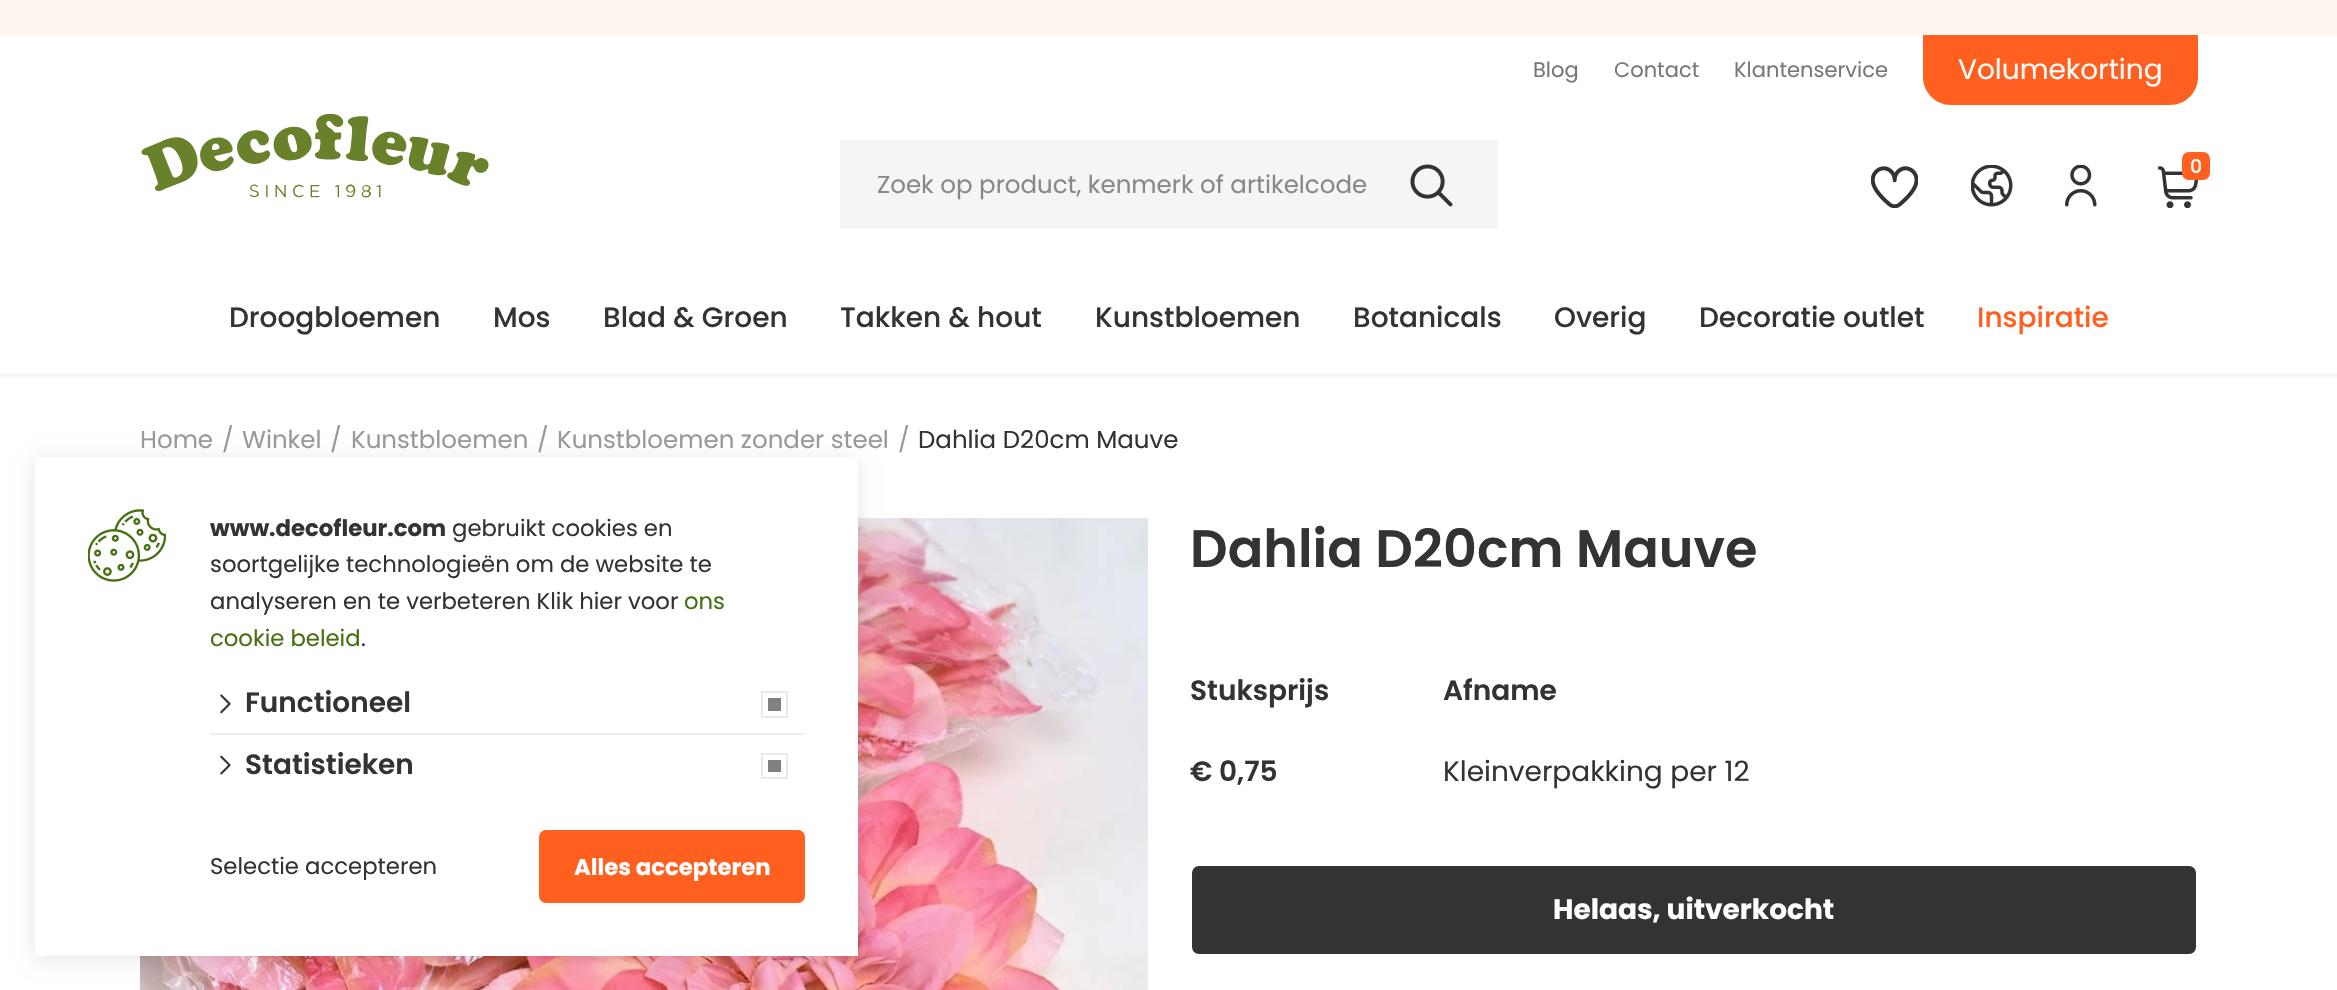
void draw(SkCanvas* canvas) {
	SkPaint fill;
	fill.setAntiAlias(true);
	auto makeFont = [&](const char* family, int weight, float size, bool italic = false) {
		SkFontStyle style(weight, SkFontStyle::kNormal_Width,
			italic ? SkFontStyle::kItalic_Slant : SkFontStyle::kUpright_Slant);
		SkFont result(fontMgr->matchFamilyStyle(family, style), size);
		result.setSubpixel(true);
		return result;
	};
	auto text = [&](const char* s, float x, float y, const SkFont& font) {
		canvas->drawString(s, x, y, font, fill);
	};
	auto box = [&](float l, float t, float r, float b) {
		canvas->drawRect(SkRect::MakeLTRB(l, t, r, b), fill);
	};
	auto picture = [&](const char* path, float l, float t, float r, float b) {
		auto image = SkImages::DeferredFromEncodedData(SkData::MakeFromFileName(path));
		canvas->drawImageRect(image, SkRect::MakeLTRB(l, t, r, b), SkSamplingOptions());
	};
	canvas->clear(0xFFFFFFFF);
	fill.setColor(0xFFF7F7F7);
	box(0, 373, 2337, 378);
	fill.setColor(0xFFFFF7EF);
	box(0, 0, 2337, 35);
	picture("image0.png", 141, 114, 489, 198);
	fill.setColor(0xFFFF5F1F);
	canvas->drawPath(SkPathBuilder().moveTo(1923, 35).lineTo(2198, 35).lineTo(2198, 77).cubicTo(2198, 92.5f, 2185.5f, 105, 2170, 105).lineTo(1951, 105).cubicTo(1935.5f, 105, 1923, 92.5f, 1923, 77).close().detach(), fill);
	picture("image1.png", 1871, 166, 1918, 208);
	picture("image2.png", 1971, 165, 2013, 207);
	picture("image3.png", 2065, 165, 2097, 207);
	picture("image4.png", 2158, 166, 2198, 208);
	canvas->drawRoundRect(SkRect::MakeLTRB(2183, 153, 2209, 179), 6, 6, fill);
	fill.setStyle(SkPaint::kStroke_Style);
	fill.setStrokeWidth(2);
	canvas->drawRoundRect(SkRect::MakeLTRB(2183, 153, 2209, 179), 6, 6, fill);
	fill.setStyle(SkPaint::kFill_Style);
	fill.setColor(0xFFF5F5F5);
	box(840, 140, 1498, 229);
	picture("image5.png", 1410, 164, 1453, 207);
	picture("image6.png", 140, 518, 1148, 990);
	fill.setColor(0xFF333333);
	canvas->drawRoundRect(SkRect::MakeLTRB(1193, 867, 2195, 953), 6, 6, fill);
	fill.setStyle(SkPaint::kStroke_Style);
	canvas->drawRoundRect(SkRect::MakeLTRB(1193, 867, 2195, 953), 6, 6, fill);
	fill.setStyle(SkPaint::kFill_Style);
	fill.setColor(0x1A000000);
	fill.setMaskFilter(SkMaskFilter::MakeBlur(kNormal_SkBlurStyle, 9));
	canvas->drawRect(SkRect::MakeLTRB(35, 460, 858, 959), fill);
	fill.setMaskFilter(nullptr);
	fill.setColor(0xFFFFFFFF);
	box(35, 457, 858, 956);
	picture("image7.png", 88, 509, 166, 582);
	picture("image8.png", 220, 694, 231, 714);
	fill.setStyle(SkPaint::kStroke_Style);
	fill.setColor(0xFFEAEAEA);
	canvas->drawRect(SkRect::MakeLTRB(762, 692, 787, 717), fill);
	fill.setStyle(SkPaint::kFill_Style);
	fill.setColor(0xFF808080);
	box(768, 698, 781, 711);
	fill.setColor(0xFFEEEEEE);
	box(210, 733, 805, 735);
	picture("image9.png", 220, 755, 231, 775);
	fill.setStyle(SkPaint::kStroke_Style);
	fill.setColor(0xFFEAEAEA);
	canvas->drawRect(SkRect::MakeLTRB(762, 754, 787, 778), fill);
	fill.setStyle(SkPaint::kFill_Style);
	fill.setColor(0xFF808080);
	box(768, 760, 781, 772);
	fill.setColor(0xFFFF5F1F);
	canvas->drawRoundRect(SkRect::MakeLTRB(540, 831, 804, 902), 6, 6, fill);
	fill.setStyle(SkPaint::kStroke_Style);
	canvas->drawRoundRect(SkRect::MakeLTRB(540, 831, 804, 902), 6, 6, fill);
	auto font1 = makeFont("Poppins", 400, 21);
	fill.setStyle(SkPaint::kFill_Style);
	fill.setColor(0xFF777777);
	text("Blog", 1533, 77, font1);
	text("Contact", 1614, 77, font1);
	text("Klantenservice", 1734, 77, font1);
	auto font2 = makeFont("Poppins", 400, 28);
	fill.setColor(0xFFFFFFFF);
	text("Volumekorting", 1958, 79, font2);
	auto font3 = makeFont("Poppins", 500, 19);
	text("0", 2190, 173, font3);
	auto font4 = makeFont("Poppins", 400, 24.5f);
	fill.setColor(0xFF888888);
	text("Zoek op product, kenmerk of artikelcode", 877, 193, font4);
	auto font5 = makeFont("Poppins", 500, 28);
	fill.setColor(0xFF333333);
	text("Droogbloemen", 229, 327, font5);
	text("Mos", 493, 327, font5);
	text("Blad & Groen", 603, 327, font5);
	text("Takken & hout", 840, 327, font5);
	text("Kunstbloemen", 1095, 327, font5);
	text("Botanicals", 1353, 327, font5);
	text("Overig", 1554, 327, font5);
	text("Decoratie outlet", 1699, 327, font5);
	fill.setColor(0xFFFF5F1F);
	text("Inspiratie", 1977, 327, font5);
	fill.setColor(0xFF999999);
	text("Home", 140, 448, font4);
	text("/", 222, 448, font4);
	text("Winkel", 242, 448, font4);
	text("/", 330, 448, font4);
	text("Kunstbloemen", 351, 448, font4);
	text("/", 537, 448, font4);
	text("Kunstbloemen zonder steel", 557, 448, font4);
	text("/", 898, 448, font4);
	fill.setColor(0xFF333333);
	text("Dahlia D20cm Mauve", 918, 448, font4);
	auto font6 = makeFont("Poppins", 600, 52.5f);
	text("Dahlia D20cm Mauve", 1190, 567, font6);
	auto font7 = makeFont("Poppins", 600, 28);
	text("Stuksprijs", 1190, 700, font7);
	text("€ 0,75", 1190, 781, font7);
	text("Afname", 1443, 700, font7);
	text("Kleinverpakking per 12", 1443, 781, font2);
	auto font8 = makeFont("Poppins", 700, 28);
	fill.setColor(0xFFFFFFFF);
	text("Helaas, uitverkocht", 1553, 919, font8);
	auto font9 = makeFont("Poppins", 700, 22.75f);
	fill.setColor(0xFF333333);
	text("www.decofleur.com", 210, 536, font9);
	auto font10 = makeFont("Poppins", 400, 22.75f);
	text("gebruikt cookies en", 452, 536, font10);
	text("soortgelijke technologieën om de website te", 210, 572, font10);
	text("analyseren en te verbeteren Klik hier voor", 210, 609, font10);
	fill.setColor(0xFF467011);
	text("ons", 684, 609, font10);
	text("cookie beleid", 210, 646, font10);
	fill.setColor(0xFF333333);
	text(".", 361, 646, font10);
	text("Functioneel", 245, 712, font7);
	text("Statistieken", 245, 774, font7);
	text("Selectie accepteren", 210, 874, font10);
	fill.setColor(0xFFFFFFFF);
	text("Alles accepteren", 574, 875, font9);
}
